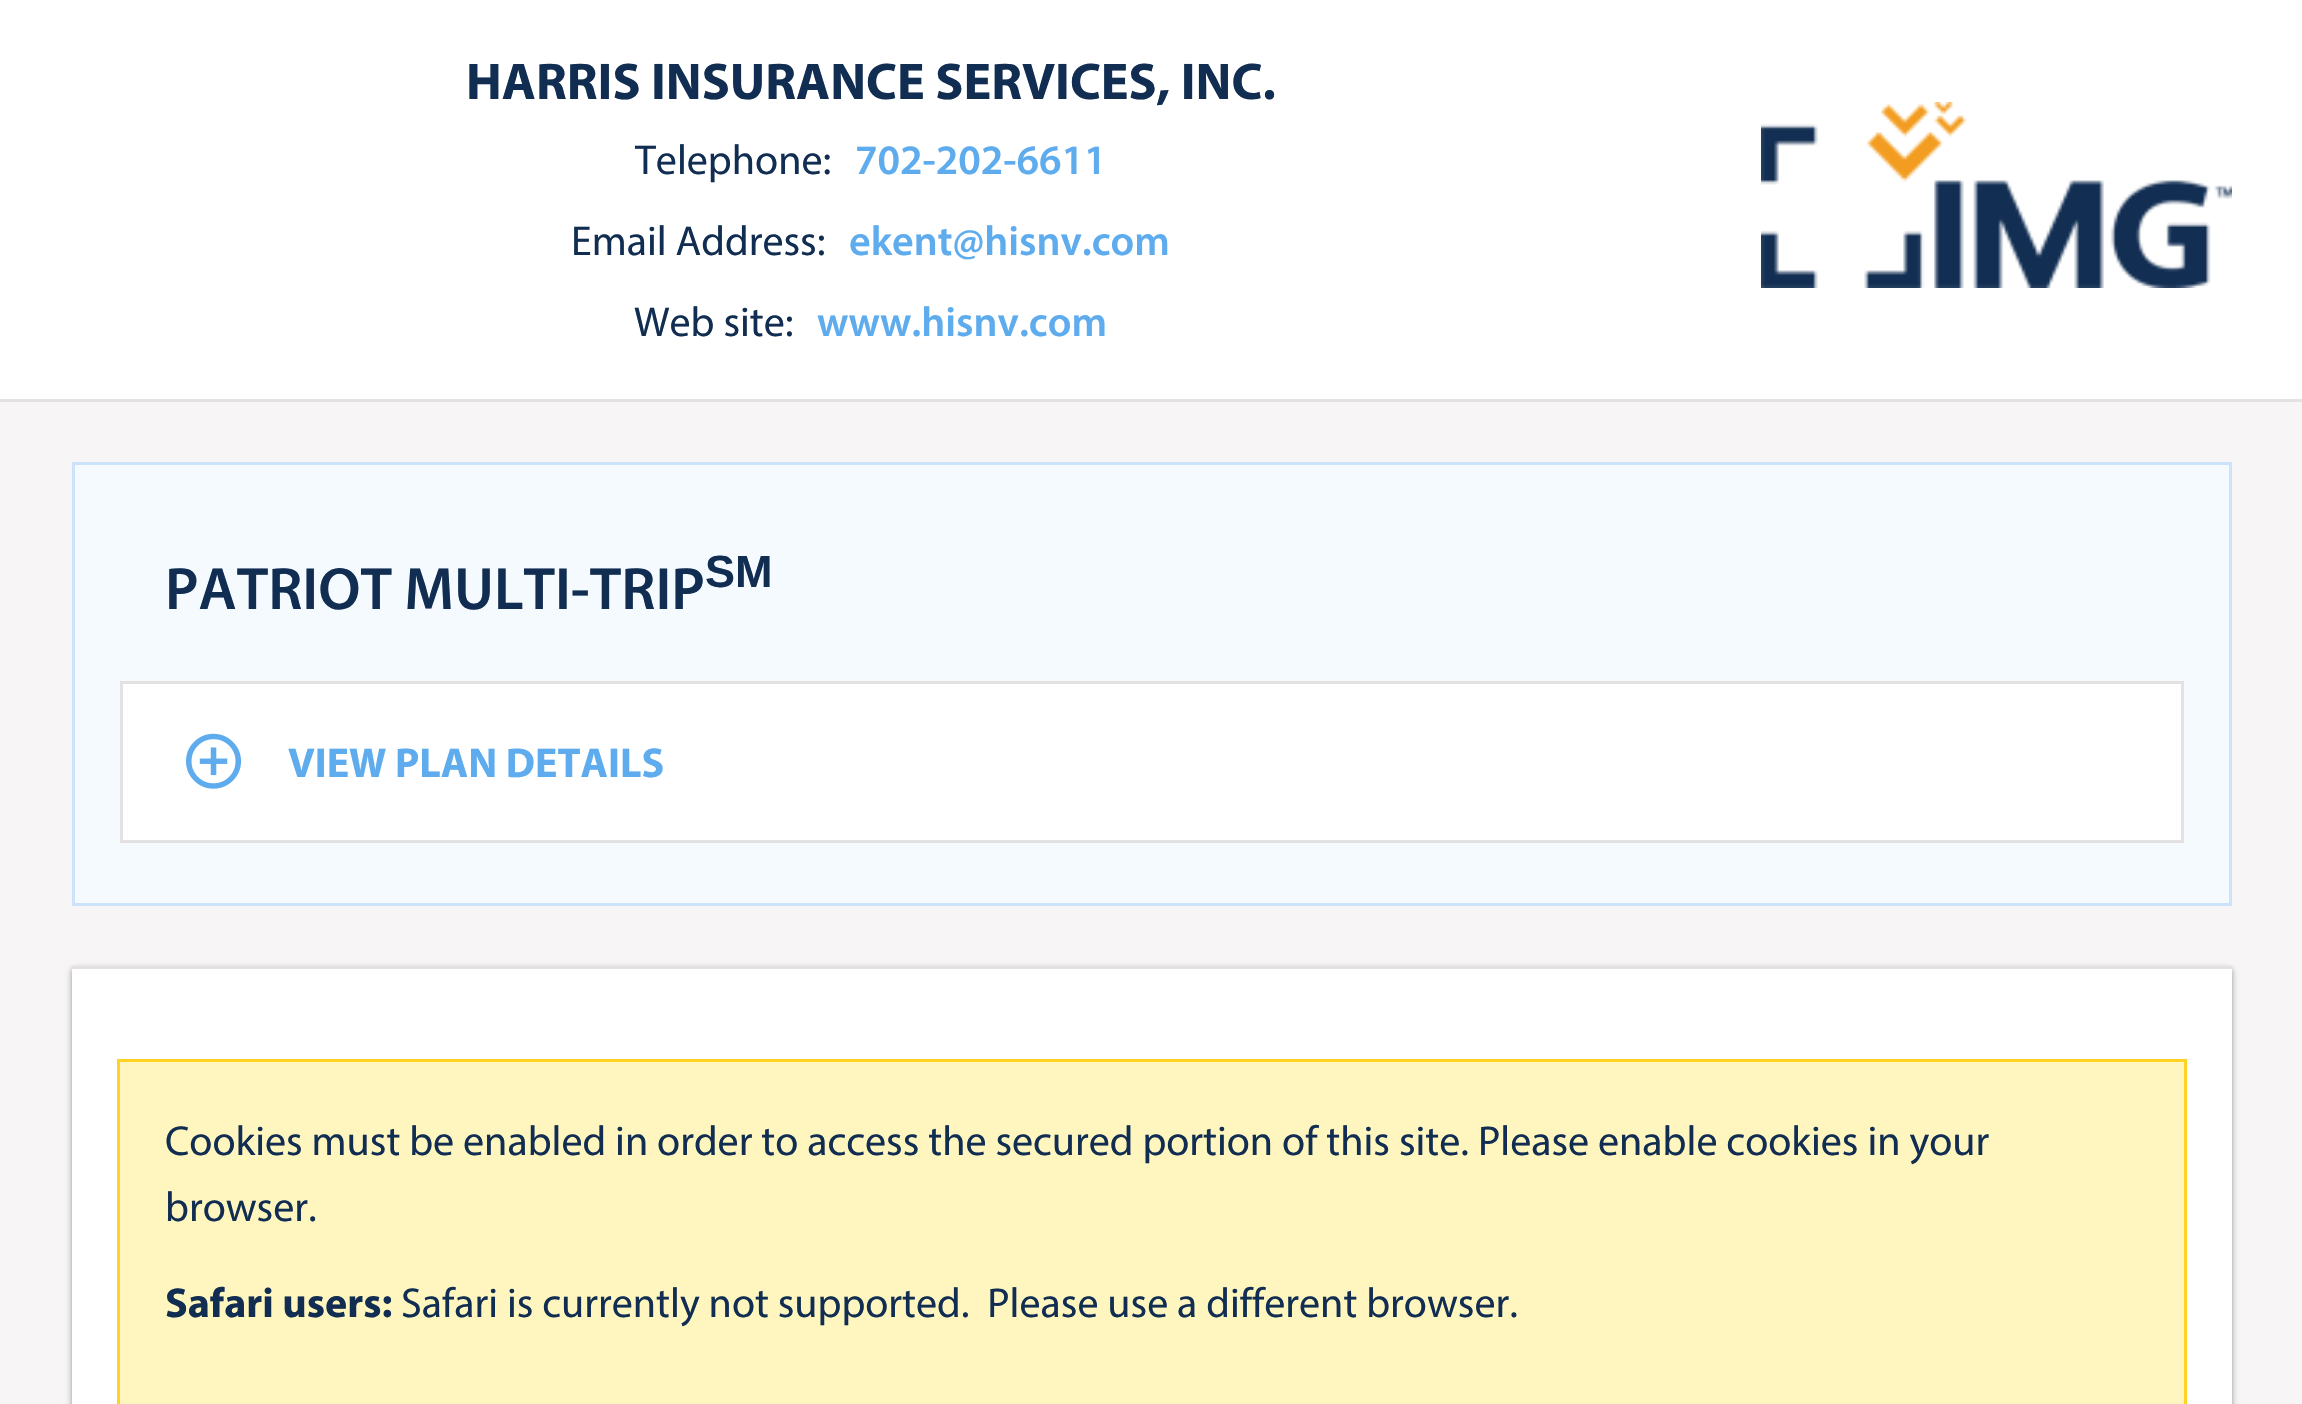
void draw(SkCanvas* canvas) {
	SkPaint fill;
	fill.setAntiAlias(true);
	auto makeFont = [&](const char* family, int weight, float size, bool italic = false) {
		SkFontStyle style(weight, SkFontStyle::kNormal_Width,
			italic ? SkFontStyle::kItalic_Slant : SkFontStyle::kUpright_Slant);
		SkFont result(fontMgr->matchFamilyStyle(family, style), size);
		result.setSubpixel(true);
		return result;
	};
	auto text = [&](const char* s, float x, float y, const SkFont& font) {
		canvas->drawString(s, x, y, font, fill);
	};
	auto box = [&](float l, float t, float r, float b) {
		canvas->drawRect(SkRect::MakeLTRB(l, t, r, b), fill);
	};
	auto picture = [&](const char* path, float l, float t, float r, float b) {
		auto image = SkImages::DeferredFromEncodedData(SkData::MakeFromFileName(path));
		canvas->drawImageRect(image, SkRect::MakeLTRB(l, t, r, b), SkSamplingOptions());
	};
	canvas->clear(0xFFF7F5F5);
	fill.setColor(0xFFFFFFFF);
	box(0, 0, 2302, 399);
	fill.setColor(0xFFE3E1E1);
	box(0, 399, 2302, 402);
	picture("image0.png", 1761, 102, 2232, 288);
	fill.setColor(0xFFF5FAFF);
	canvas->drawRect(SkRect::MakeLTRB(73.5f, 463.5f, 2230.5f, 904.5f), fill);
	fill.setStyle(SkPaint::kStroke_Style);
	fill.setStrokeWidth(3);
	fill.setColor(0xFFCCE3FB);
	canvas->drawRect(SkRect::MakeLTRB(73.5f, 463.5f, 2230.5f, 904.5f), fill);
	fill.setStyle(SkPaint::kFill_Style);
	fill.setColor(0xFFFFFFFF);
	canvas->drawRect(SkRect::MakeLTRB(121.5f, 682.5f, 2182.5f, 841.5f), fill);
	fill.setStyle(SkPaint::kStroke_Style);
	fill.setColor(0xFFE3E1E1);
	canvas->drawRect(SkRect::MakeLTRB(121.5f, 682.5f, 2182.5f, 841.5f), fill);
	picture("image1.png", 186, 733, 242, 789);
	fill.setStyle(SkPaint::kFill_Style);
	fill.setColor(0x66000000);
	fill.setMaskFilter(SkMaskFilter::MakeBlur(kNormal_SkBlurStyle, 3));
	canvas->drawRect(SkRect::MakeLTRB(72, 969, 2232, 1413), fill);
	fill.setMaskFilter(nullptr);
	fill.setColor(0xFFFFFFFF);
	box(72, 969, 2232, 1404);
	fill.setColor(0xFFE3E1E1);
	box(72, 966, 2232, 969);
	fill.setColor(0xFFFFF6BF);
	canvas->drawRect(SkRect::MakeLTRB(118.5f, 1060.5f, 2185.5f, 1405.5f), fill);
	fill.setStyle(SkPaint::kStroke_Style);
	fill.setColor(0xFFFFD324);
	canvas->drawRect(SkRect::MakeLTRB(118.5f, 1060.5f, 2185.5f, 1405.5f), fill);
	auto font1 = makeFont("Myriad", 700, 52);
	fill.setStyle(SkPaint::kFill_Style);
	fill.setColor(0xFF112E52);
	text("HARRIS INSURANCE SERVICES, INC.", 466, 99, font1);
	auto font2 = makeFont("Myriad", 400, 42);
	text("Telephone:", 635, 174, font2);
	auto font3 = makeFont("Myriad", 600, 42);
	fill.setColor(0xFF5EACEE);
	text("702-202-6611", 855, 174, font3);
	fill.setColor(0xFF112E52);
	text("Email Address:", 571, 255, font2);
	fill.setColor(0xFF5EACEE);
	text("ekent@hisnv.com", 849, 255, font3);
	fill.setColor(0xFF112E52);
	text("Web site:", 634, 336, font2);
	fill.setColor(0xFF5EACEE);
	text("www.hisnv.com", 817, 336, font3);
	auto font4 = makeFont("Myriad", 600, 60);
	fill.setColor(0xFF112E52);
	text("PATRIOT MULTI-TRIP", 165, 609, font4);
	auto font5 = makeFont("Liberation Sans", 700, 45);
	text("SM", 705, 587, font5);
	auto font6 = makeFont("Myriad", 700, 42);
	fill.setColor(0xFF5EACEE);
	text("VIEW PLAN DETAILS", 288, 777, font6);
	fill.setColor(0xFF112E52);
	text("Cookies must be enabled in order to access the secured portion of this site. Please enable cookies in your", 165, 1155, font2);
	text("browser.", 165, 1221, font2);
	text("Safari users:", 165, 1317, font6);
	text("Safari is currently not supported.  Please use a different browser.", 401, 1317, font2);
}
